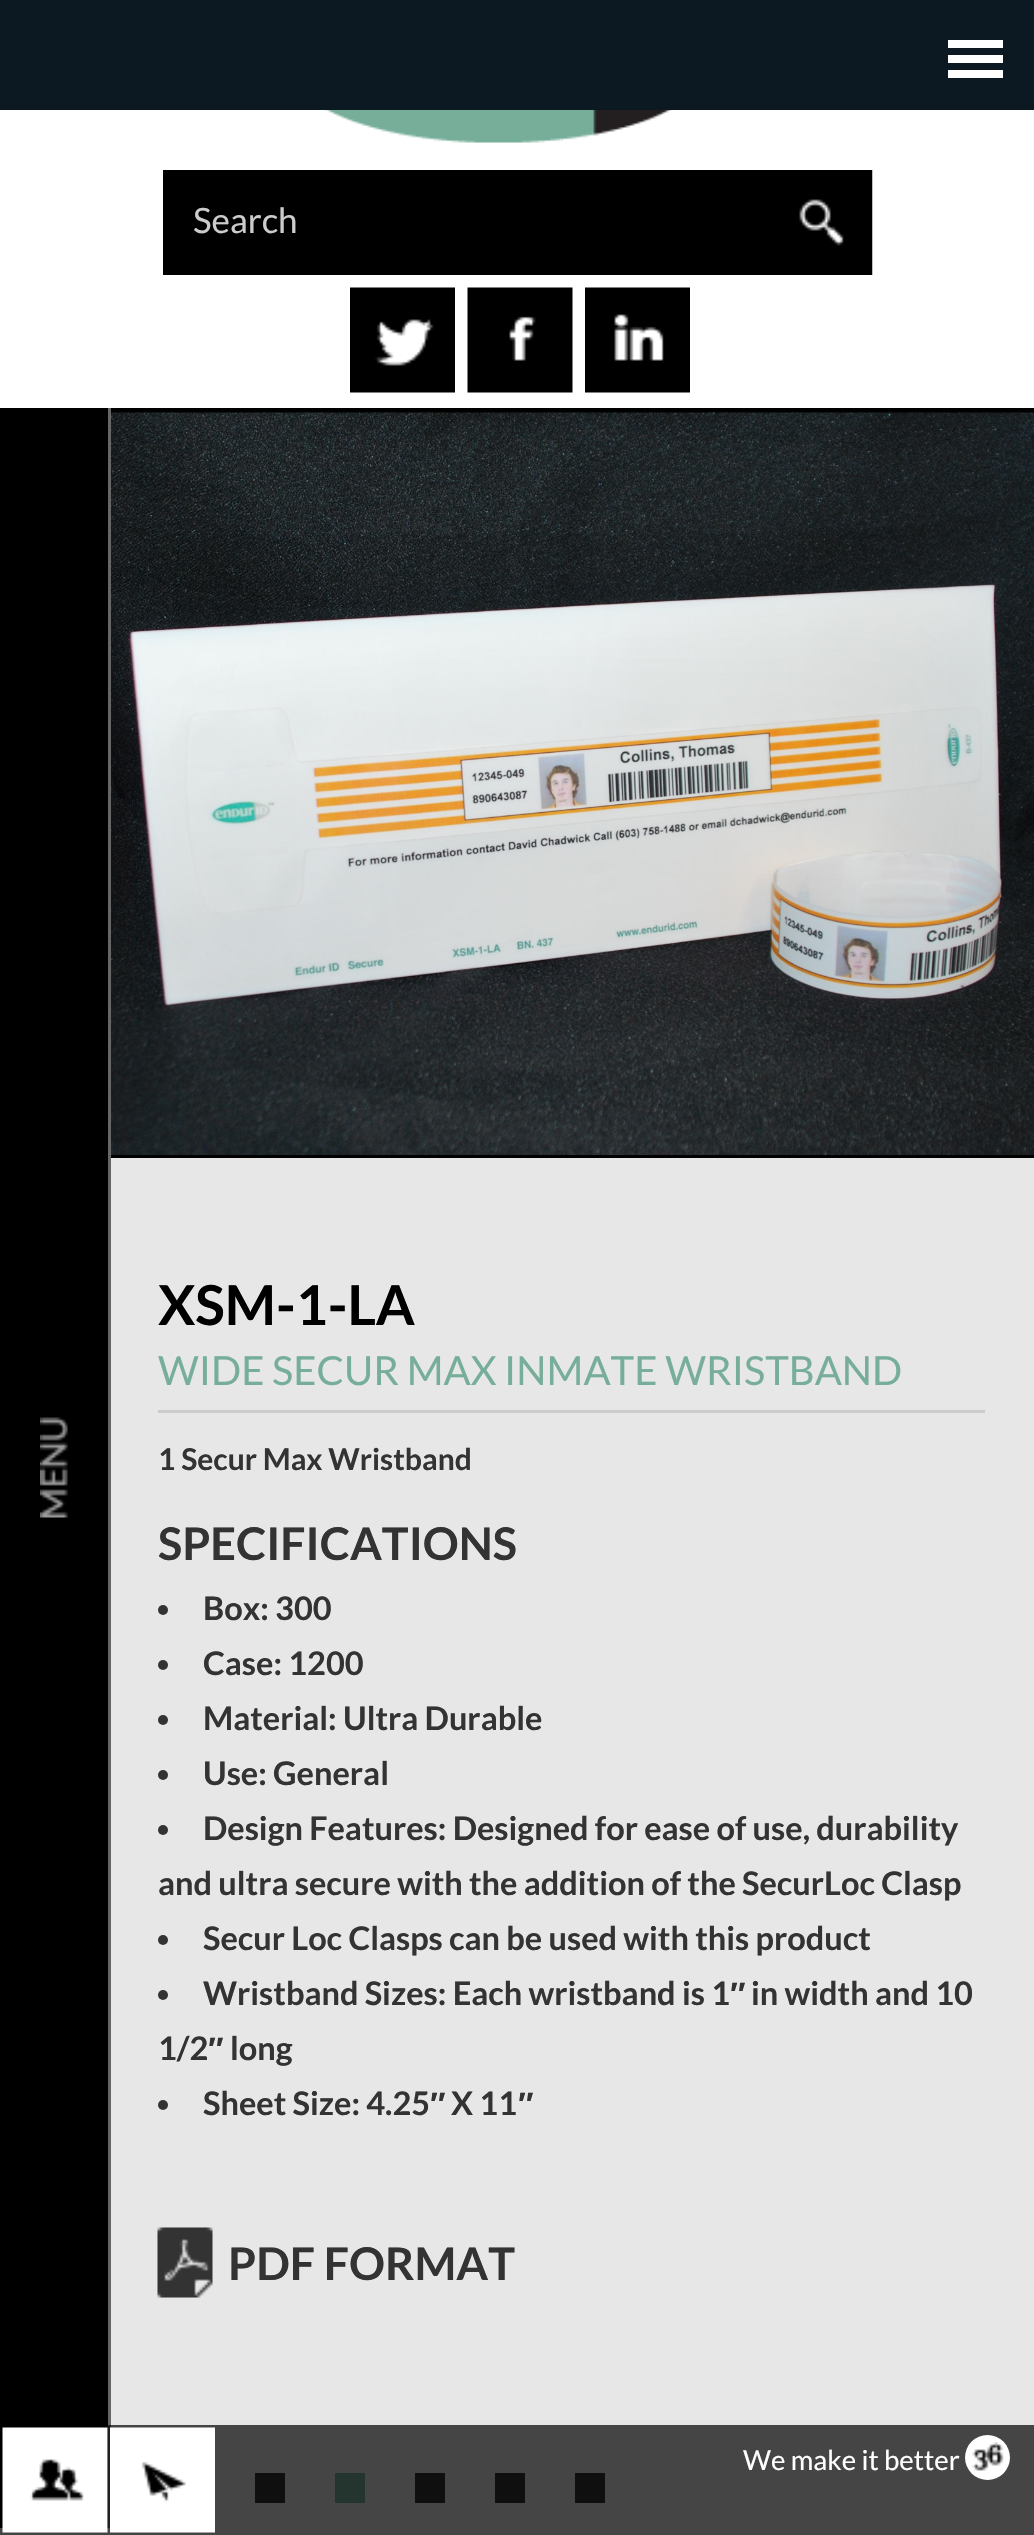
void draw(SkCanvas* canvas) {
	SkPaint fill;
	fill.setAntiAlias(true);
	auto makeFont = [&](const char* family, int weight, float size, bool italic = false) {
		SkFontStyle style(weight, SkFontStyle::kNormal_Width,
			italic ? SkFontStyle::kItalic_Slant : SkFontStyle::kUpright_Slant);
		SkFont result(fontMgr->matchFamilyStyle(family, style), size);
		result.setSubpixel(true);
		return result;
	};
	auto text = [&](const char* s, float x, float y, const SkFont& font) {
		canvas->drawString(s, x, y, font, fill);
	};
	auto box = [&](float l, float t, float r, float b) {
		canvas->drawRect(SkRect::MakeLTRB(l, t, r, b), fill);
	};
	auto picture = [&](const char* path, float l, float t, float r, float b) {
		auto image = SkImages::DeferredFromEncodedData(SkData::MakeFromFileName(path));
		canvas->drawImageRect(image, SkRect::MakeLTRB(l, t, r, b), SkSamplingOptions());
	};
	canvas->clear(0xFFE8E7E7);
	fill.setColor(0xFF464545);
	box(0, 2425, 1034, 2535);
	fill.setColor(0xFF0C1923);
	box(0, 0, 1034, 110);
	fill.setColor(0xFFFFFFFF);
	box(948, 40, 1003, 48);
	box(948, 55, 1003, 63);
	box(948, 70, 1003, 78);
	box(0, 110, 1034, 408);
	picture("image0.png", 324, 110, 672, 143);
	fill.setColor(0xFF000000);
	box(163, 170, 768, 275);
	picture("image1.png", 768, 170, 873, 275);
	picture("image2.png", 350, 287, 455, 393);
	picture("image3.png", 467, 287, 573, 393);
	picture("image4.png", 585, 287, 690, 393);
	box(0, 408, 108, 2528);
	picture("image5.png", 40, 1417, 68, 1518);
	fill.setColor(0xFF666666);
	box(108, 408, 111, 2425);
	fill.setColor(0xFF1F1F1F);
	box(108, 2425, 111, 2528);
	fill.setColor(0xFF010101);
	box(111, 408, 1034, 1158);
	picture("image6.png", 111, 412, 1034, 1155);
	fill.setColor(0xFFCCCCCC);
	box(158, 1410, 985, 1413);
	fill.setColor(0xFF333333);
	canvas->drawCircle(163, 1610, 5, fill);
	canvas->drawCircle(163, 1665, 5, fill);
	canvas->drawCircle(163, 1720, 5, fill);
	canvas->drawCircle(163, 1775, 5, fill);
	canvas->drawCircle(163, 1830, 5, fill);
	canvas->drawCircle(163, 1940, 5, fill);
	canvas->drawCircle(163, 1995, 5, fill);
	canvas->drawCircle(163, 2105, 5, fill);
	picture("image7.png", 157, 2227, 213, 2298);
	fill.setColor(0xFF0F0F0F);
	box(255, 2473, 285, 2503);
	fill.setColor(0xFF24342E);
	box(335, 2473, 365, 2503);
	fill.setColor(0xFF0F0F0F);
	box(415, 2473, 445, 2503);
	box(495, 2473, 525, 2503);
	box(575, 2473, 605, 2503);
	picture("image8.png", 2, 2427, 108, 2533);
	picture("image9.png", 110, 2427, 215, 2533);
	fill.setColor(0xFFFFFFFF);
	canvas->drawCircle(987.5f, 2457.5f, 22.5f, fill);
	picture("image10.png", 972, 2442, 1004, 2471);
	auto font1 = makeFont("Lato", 400, 35);
	fill.setColor(0xFFCCCCCC);
	text("Search", 193, 233, font1);
	auto font2 = makeFont("Lato", 700, 55);
	fill.setColor(0xFF000000);
	text("XSM-1-LA", 158, 1325, font2);
	auto font3 = makeFont("Lato", 400, 40);
	fill.setColor(0xFF77AE9A);
	text("WIDE SECUR MAX INMATE WRISTBAND", 158, 1385, font3);
	auto font4 = makeFont("Lato", 700, 30);
	fill.setColor(0xFF333333);
	text("1 Secur Max Wristband", 158, 1470, font4);
	auto font5 = makeFont("Lato", 700, 45);
	text("SPECIFICATIONS", 158, 1560, font5);
	auto font6 = makeFont("Lato", 700, 32.5f);
	text("Box: 300", 203, 1620, font6);
	text("Case: 1200", 203, 1675, font6);
	text("Material: Ultra Durable", 203, 1730, font6);
	text("Use: General", 203, 1785, font6);
	text("Design Features: Designed for ease of use, durability", 203, 1840, font6);
	text("and ultra secure with the addition of the SecurLoc Clasp", 158, 1895, font6);
	text("Secur Loc Clasps can be used with this product", 203, 1950, font6);
	text("Wristband Sizes: Each wristband is 1", 203, 2005, font6);
	auto font7 = makeFont("Liberation Sans", 700, 32.5f);
	text("″", 730, 2005, font7);
	text("in width and 10", 751, 2005, font6);
	text("1/2", 158, 2060, font6);
	text("″", 208, 2060, font7);
	text("long", 230, 2060, font6);
	text("Sheet Size: 4.25", 203, 2115, font6);
	text("″", 430, 2115, font7);
	text("X 11", 451, 2115, font6);
	text("″", 518, 2115, font7);
	text("PDF FORMAT", 228, 2280, font5);
	auto font8 = makeFont("Lato", 400, 27.5f);
	fill.setColor(0xFFFFFFFF);
	text("We make it better", 743, 2470, font8);
}
